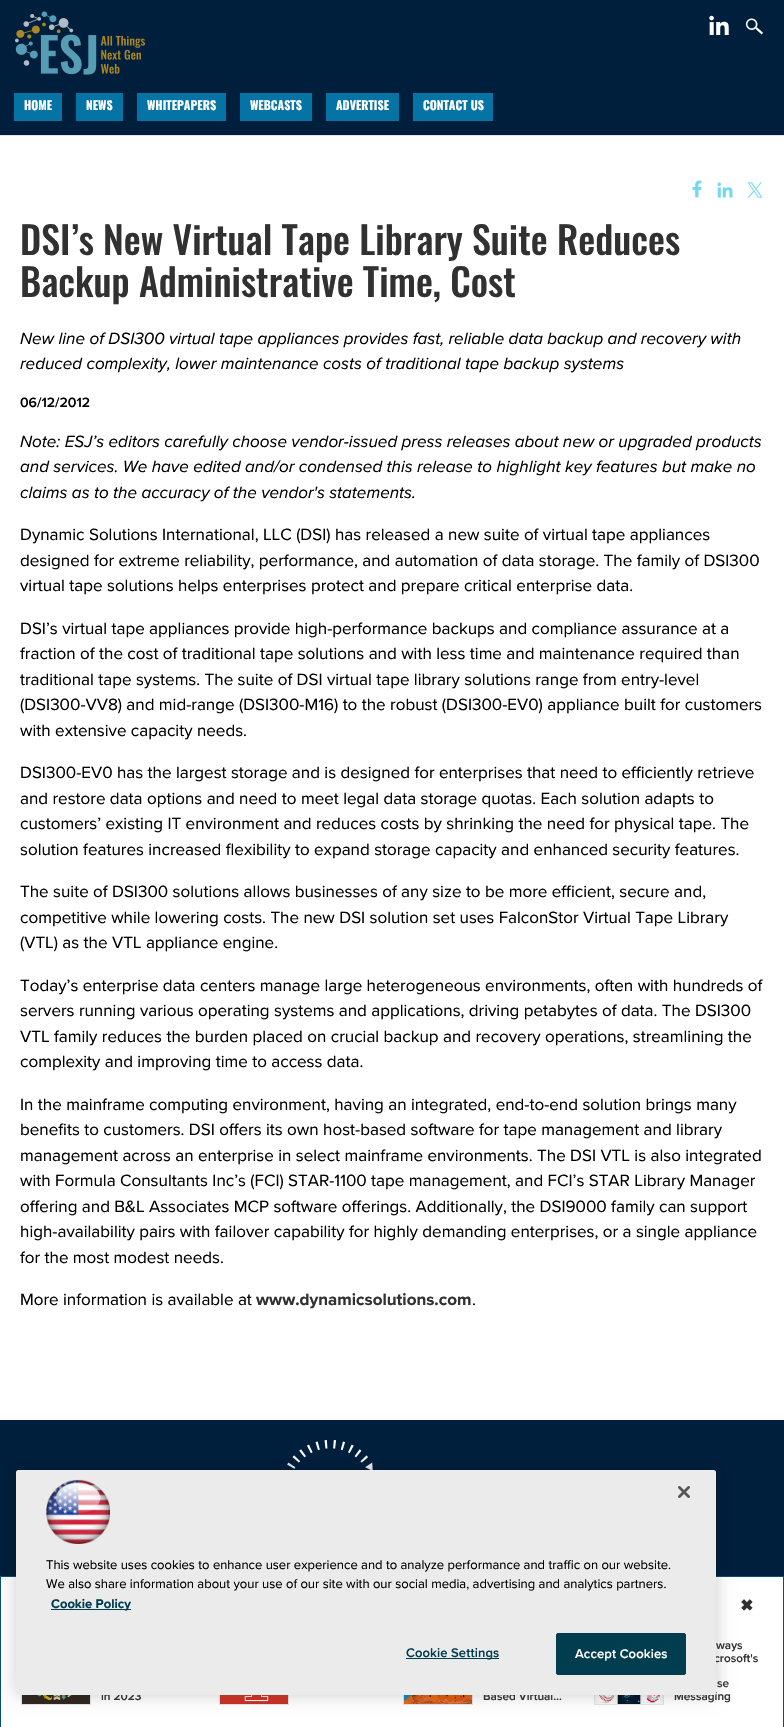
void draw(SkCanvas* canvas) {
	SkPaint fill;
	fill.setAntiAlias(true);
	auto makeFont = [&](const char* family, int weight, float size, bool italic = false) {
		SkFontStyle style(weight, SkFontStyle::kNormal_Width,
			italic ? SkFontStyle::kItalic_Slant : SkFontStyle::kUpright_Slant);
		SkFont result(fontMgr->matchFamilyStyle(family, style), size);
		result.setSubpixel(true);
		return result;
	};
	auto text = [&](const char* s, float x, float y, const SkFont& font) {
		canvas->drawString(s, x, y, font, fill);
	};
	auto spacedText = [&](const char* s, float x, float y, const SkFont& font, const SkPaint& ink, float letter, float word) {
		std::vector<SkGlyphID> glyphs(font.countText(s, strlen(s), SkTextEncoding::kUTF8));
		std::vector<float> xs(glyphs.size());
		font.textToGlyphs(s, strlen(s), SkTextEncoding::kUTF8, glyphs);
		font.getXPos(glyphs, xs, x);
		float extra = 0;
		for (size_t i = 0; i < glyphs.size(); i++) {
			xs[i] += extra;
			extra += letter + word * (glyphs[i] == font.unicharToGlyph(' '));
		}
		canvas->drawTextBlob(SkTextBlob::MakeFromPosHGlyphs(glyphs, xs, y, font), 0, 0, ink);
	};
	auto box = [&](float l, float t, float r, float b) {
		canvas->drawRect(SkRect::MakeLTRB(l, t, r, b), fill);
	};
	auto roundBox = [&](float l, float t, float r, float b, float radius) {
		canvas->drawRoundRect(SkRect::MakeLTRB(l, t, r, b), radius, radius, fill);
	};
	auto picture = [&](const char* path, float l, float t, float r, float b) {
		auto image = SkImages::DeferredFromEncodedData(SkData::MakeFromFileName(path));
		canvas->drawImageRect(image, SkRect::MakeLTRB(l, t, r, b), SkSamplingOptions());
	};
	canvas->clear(0xFFFFFFFF);
	fill.setColor(0xFF001F3D);
	box(0, 0, 784, 135);
	picture("image0.png", 15, 11, 145, 75);
	picture("image1.png", 709, 15, 729, 35);
	picture("image2.png", 745, 18, 763, 35);
	fill.setColor(0xFFE6E7E8);
	box(0, 135, 784, 136);
	fill.setColor(0xFF0673A5);
	box(14, 93, 62, 121);
	box(76, 93, 123, 121);
	box(137, 93, 226, 121);
	box(240, 93, 312, 121);
	box(326, 93, 399, 121);
	box(413, 93, 493, 121);
	picture("image3.png", 692, 180, 702, 198);
	picture("image4.png", 717, 182, 733, 198);
	picture("image5.png", 747, 182, 763, 198);
	fill.setColor(0xFF045174);
	box(0, 1576, 784, 1577);
	box(783, 1576, 784, 1727);
	box(0, 1576, 1, 1727);
	fill.setStyle(SkPaint::kStroke_Style);
	fill.setStrokeWidth(1);
	fill.setColor(0xFFE4E4E4);
	canvas->drawRect(SkRect::MakeLTRB(21.5f, 1635.5f, 90.5f, 1704.5f), fill);
	picture("image6.png", 22, 1695, 90, 1704);
	canvas->drawRect(SkRect::MakeLTRB(219.5f, 1635.5f, 288.5f, 1704.5f), fill);
	picture("image7.png", 220, 1695, 288, 1704);
	canvas->drawRect(SkRect::MakeLTRB(403.5f, 1635.5f, 472.5f, 1704.5f), fill);
	picture("image8.png", 404, 1695, 472, 1704);
	canvas->drawRect(SkRect::MakeLTRB(594.5f, 1635.5f, 663.5f, 1704.5f), fill);
	picture("image9.png", 595, 1695, 663, 1704);
	fill.setStyle(SkPaint::kFill_Style);
	fill.setColor(0xFF001F3D);
	box(0, 1420, 784, 1576);
	picture("image10.png", 287, 1440, 373, 1470);
	fill.setColor(0x33000000);
	fill.setMaskFilter(SkMaskFilter::MakeBlur(kNormal_SkBlurStyle, 9));
	canvas->drawRoundRect(SkRect::MakeLTRB(16, 1470, 716, 1695), 2.5f, 2.5f, fill);
	fill.setMaskFilter(nullptr);
	auto font1 = makeFont("Oswald", 700, 12);
	fill.setColor(0xFFFFFFFF);
	text("HOME", 24, 110, font1);
	text("NEWS", 86, 110, font1);
	text("WHITEPAPERS", 147, 110, font1);
	text("WEBCASTS", 250, 110, font1);
	text("ADVERTISE", 336, 110, font1);
	text("CONTACT US", 423, 110, font1);
	auto font2 = makeFont("Oswald", 500, 38);
	fill.setColor(0xFF323132);
	text("DSI’s New Virtual Tape Library Suite Reduces", 20, 255, font2);
	text("Backup Administrative Time, Cost", 20, 297, font2);
	auto font3 = makeFont("Proxima Nova", 400, 17, true);
	fill.setColor(0xFF000000);
	text("New line of DSI300 virtual tape appliances provides fast, reliable data backup and recovery with", 20, 344, font3);
	text("reduced complexity, lower maintenance costs of traditional tape backup systems", 20, 369, font3);
	auto font4 = makeFont("Proxima Nova", 600, 14);
	text("06/12/2012", 20, 407, font4);
	text("Note: ESJ’s editors carefully choose vendor-issued press releases about new or upgraded products", 20, 447, font3);
	text("and services. We have edited and/or condensed this release to highlight key features but make no", 20, 472, font3);
	text("claims as to the accuracy of the vendor's statements.", 20, 498, font3);
	auto font5 = makeFont("Proxima Nova", 400, 17);
	text("Dynamic Solutions International, LLC (DSI) has released a new suite of virtual tape appliances", 20, 540, font5);
	text("designed for extreme reliability, performance, and automation of data storage. The family of DSI300", 20, 566, font5);
	text("virtual tape solutions helps enterprises protect and prepare critical enterprise data.", 20, 591, font5);
	text("DSI’s virtual tape appliances provide high-performance backups and compliance assurance at a", 20, 634, font5);
	text("fraction of the cost of traditional tape solutions and with less time and maintenance required than", 20, 659, font5);
	text("traditional tape systems. The suite of DSI virtual tape library solutions range from entry-level", 20, 685, font5);
	text("(DSI300-VV8) and mid-range (DSI300-M16) to the robust (DSI300-EV0) appliance built for customers", 20, 710, font5);
	text("with extensive capacity needs.", 20, 736, font5);
	text("DSI300-EV0 has the largest storage and is designed for enterprises that need to efficiently retrieve", 20, 778, font5);
	text("and restore data options and need to meet legal data storage quotas. Each solution adapts to", 20, 804, font5);
	text("customers’ existing IT environment and reduces costs by shrinking the need for physical tape. The", 20, 829, font5);
	text("solution features increased flexibility to expand storage capacity and enhanced security features.", 20, 855, font5);
	text("The suite of DSI300 solutions allows businesses of any size to be more efficient, secure and,", 20, 897, font5);
	text("competitive while lowering costs. The new DSI solution set uses FalconStor Virtual Tape Library", 20, 923, font5);
	text("(VTL) as the VTL appliance engine.", 20, 948, font5);
	text("Today’s enterprise data centers manage large heterogeneous environments, often with hundreds of", 20, 991, font5);
	text("servers running various operating systems and applications, driving petabytes of data. The DSI300", 20, 1016, font5);
	text("VTL family reduces the burden placed on crucial backup and recovery operations, streamlining the", 20, 1042, font5);
	text("complexity and improving time to access data.", 20, 1067, font5);
	text("In the mainframe computing environment, having an integrated, end-to-end solution brings many", 20, 1110, font5);
	text("benefits to customers. DSI offers its own host-based software for tape management and library", 20, 1135, font5);
	text("management across an enterprise in select mainframe environments. The DSI VTL is also integrated", 20, 1161, font5);
	text("with Formula Consultants Inc’s (FCI) STAR-1100 tape management, and FCI’s STAR Library Manager", 20, 1186, font5);
	text("offering and B&L Associates MCP software offerings. Additionally, the DSI9000 family can support", 20, 1212, font5);
	text("high-availability pairs with failover capability for highly demanding enterprises, or a single appliance", 20, 1237, font5);
	text("for the most modest needs.", 20, 1263, font5);
	text("More information is available at", 20, 1305, font5);
	auto font6 = makeFont("Proxima Nova", 700, 17);
	fill.setColor(0xFF323132);
	text("www.dynamicsolutions.com", 256, 1305, font6);
	fill.setColor(0xFF000000);
	text(".", 472, 1305, font5);
	auto font7 = makeFont("DejaVu Sans", 700, 16);
	fill.setColor(0xFF323132);
	text("✖", 740, 1611, font7);
	auto font8 = makeFont("Proxima Nova", 600, 11.75f);
	text("in 2023", 101, 1700, font8);
	text("Based Virtual…", 483, 1700, font8);
	text("ways", 716, 1649, font8);
	text("crosoft's", 714, 1662, font8);
	text("se", 717, 1687, font8);
	text("Messaging", 674, 1700, font8);
	fill.setColor(0xFFEBEBEB);
	roundBox(16, 1470, 716, 1695, 2.5f);
	picture("image11.png", 678, 1486, 690, 1498);
	picture("image12.png", 46, 1479, 110, 1544);
	auto font9 = makeFont("Proxima Nova", 400, 13);
	fill.setColor(0xFF000000);
	text("This website uses cookies to enhance user experience and to analyze performance and traffic on our website.", 46, 1569, font9);
	text("We also share information about your use of our site with our social media, advertising and analytics partners.", 46, 1588, font9);
	fill.setColor(0xFF003D4F);
	box(51, 1609, 131, 1610);
	auto font10 = makeFont("Proxima Nova", 700, 13);
	text("Cookie Policy", 51, 1608, font10);
	box(406, 1658, 499, 1659);
	auto font11 = makeFont("Proxima Nova", 600, 13);
	spacedText("Cookie Settings", 406, 1657, font11, fill, 0.1f, 0);
	canvas->drawRoundRect(SkRect::MakeLTRB(556.5f, 1633.5f, 685.5f, 1674.5f), 1.5f, 1.5f, fill);
	fill.setStyle(SkPaint::kStroke_Style);
	canvas->drawRoundRect(SkRect::MakeLTRB(556.5f, 1633.5f, 685.5f, 1674.5f), 1.5f, 1.5f, fill);
	fill.setStyle(SkPaint::kFill_Style);
	fill.setColor(0xFFFFFFFF);
	spacedText("Accept Cookies", 575, 1658, font11, fill, 0.1f, 0);
}
